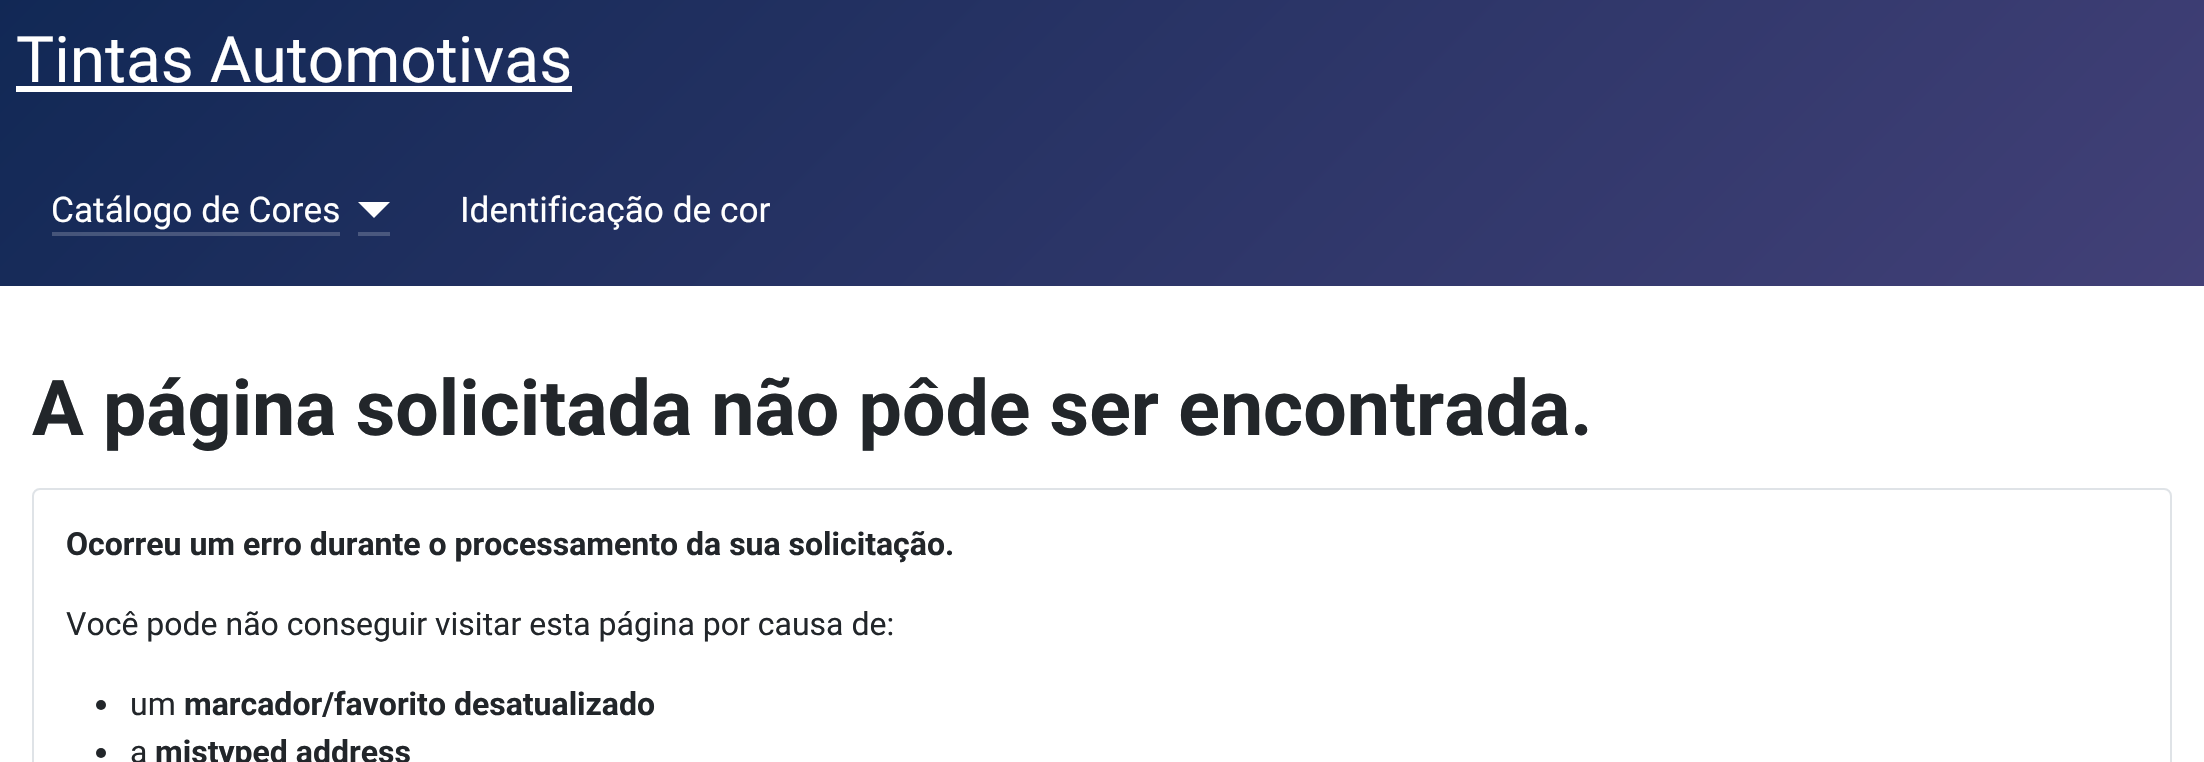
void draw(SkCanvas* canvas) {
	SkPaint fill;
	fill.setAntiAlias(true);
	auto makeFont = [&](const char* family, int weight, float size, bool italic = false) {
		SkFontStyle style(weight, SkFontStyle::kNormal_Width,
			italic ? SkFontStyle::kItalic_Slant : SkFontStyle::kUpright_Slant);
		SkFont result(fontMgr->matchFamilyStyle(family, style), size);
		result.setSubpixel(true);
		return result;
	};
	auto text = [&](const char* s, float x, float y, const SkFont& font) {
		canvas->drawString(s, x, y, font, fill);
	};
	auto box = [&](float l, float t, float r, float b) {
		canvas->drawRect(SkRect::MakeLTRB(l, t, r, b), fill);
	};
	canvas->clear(0xFFFFFFFF);
	{
		const SkColor colors[] = {0xFF112855, 0xFF424077};
		const float stops[] = {0, 1};
		const SkPoint ends[] = {{476, -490}, {1728, 762}};
		fill.setShader(SkGradientShader::MakeLinear(ends, colors, stops, 2, SkTileMode::kClamp));
		fill.setAlpha(255);
	}
	box(0, 0, 2204, 286);
	{
		const SkColor colors[] = {0xFF415377, 0xFF686692};
		const float stops[] = {0, 1};
		const SkPoint ends[] = {{476, -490}, {1728, 762}};
		fill.setShader(SkGradientShader::MakeLinear(ends, colors, stops, 2, SkTileMode::kClamp));
		fill.setAlpha(255);
	}
	box(52, 232, 340, 236);
	fill.setShader(nullptr);
	fill.setColor(0xFFFFFFFF);
	box(16, 86, 572, 92);
	canvas->drawPath(SkPathBuilder().moveTo(358, 202).lineTo(390, 202).lineTo(374, 218).close().detach(), fill);
	fill.setColor(0xFF4A587E);
	box(358, 232, 390, 236);
	fill.setStyle(SkPaint::kStroke_Style);
	fill.setStrokeWidth(2);
	fill.setColor(0xFFDFE3E7);
	canvas->drawRoundRect(SkRect::MakeLTRB(33, 489, 2171, 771), 7, 7, fill);
	fill.setStyle(SkPaint::kFill_Style);
	fill.setColor(0xFF22262A);
	canvas->drawCircle(101, 705, 5, fill);
	canvas->drawCircle(101, 753, 5, fill);
	auto font1 = makeFont("Roboto", 400, 64);
	fill.setColor(0xFFFFFFFF);
	text("Tintas Automotivas", 16, 82, font1);
	auto font2 = makeFont("Roboto", 400, 35.25f);
	text("Catálogo de Cores", 51, 222, font2);
	text("Identificação de cor", 460, 222, font2);
	auto font3 = makeFont("Roboto", 700, 77.1f);
	fill.setColor(0xFF22262A);
	text("A página solicitada não pôde ser encontrada.", 32, 435, font3);
	auto font4 = makeFont("Roboto", 700, 32);
	text("Ocorreu um erro durante o processamento da sua solicitação.", 66, 555, font4);
	auto font5 = makeFont("Roboto", 400, 32);
	text("Você pode não conseguir visitar esta página por causa de:", 66, 635, font5);
	text("um", 130, 715, font5);
	text("marcador/favorito desatualizado", 184, 715, font4);
	text("a", 130, 763, font5);
	text("mistyped address", 155, 763, font4);
}
